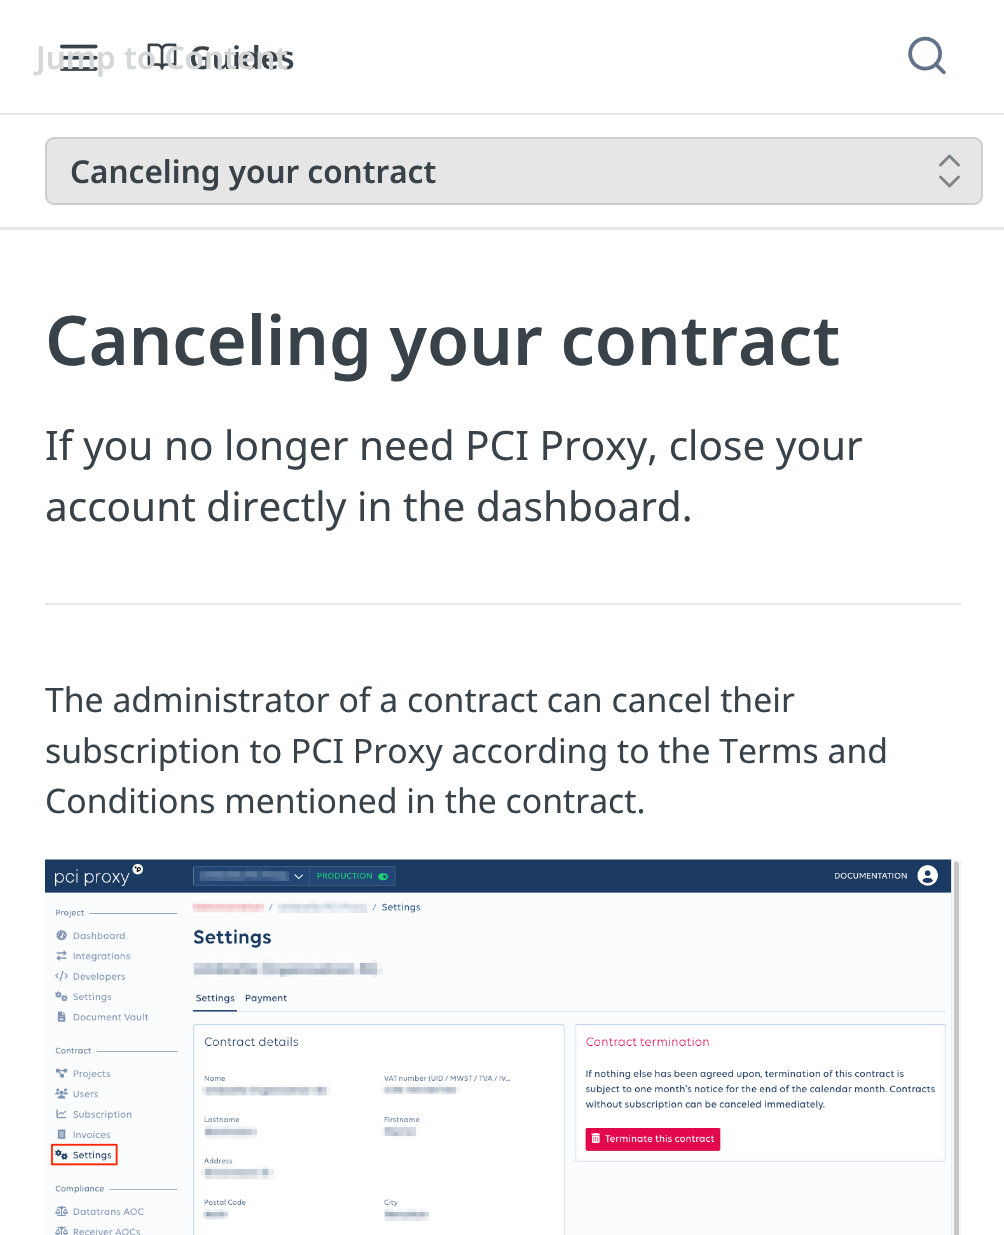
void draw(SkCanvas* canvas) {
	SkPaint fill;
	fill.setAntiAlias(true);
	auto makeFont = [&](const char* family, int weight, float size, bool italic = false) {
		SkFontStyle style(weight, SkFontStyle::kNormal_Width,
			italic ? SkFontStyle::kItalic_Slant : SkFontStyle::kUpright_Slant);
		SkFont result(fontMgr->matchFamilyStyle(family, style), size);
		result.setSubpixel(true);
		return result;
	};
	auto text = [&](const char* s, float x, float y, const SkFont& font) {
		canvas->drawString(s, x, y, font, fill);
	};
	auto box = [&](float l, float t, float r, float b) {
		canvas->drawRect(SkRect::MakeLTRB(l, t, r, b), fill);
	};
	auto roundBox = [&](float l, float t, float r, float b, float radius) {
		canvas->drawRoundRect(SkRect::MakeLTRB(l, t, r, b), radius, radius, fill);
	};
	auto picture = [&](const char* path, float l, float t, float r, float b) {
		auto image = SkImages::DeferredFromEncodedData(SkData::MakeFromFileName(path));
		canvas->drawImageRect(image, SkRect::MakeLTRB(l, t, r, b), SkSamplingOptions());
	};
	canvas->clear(0xFFFFFFFF);
	fill.setColor(0xFFE6E6E6);
	canvas->drawPath(SkPathBuilder().moveTo(0, 227).lineTo(0, 230).lineTo(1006, 230).lineTo(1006, 2).lineTo(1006, 227).close().detach(), fill);
	box(0, 113, 1004, 115);
	picture("image0.png", 60, 44, 98, 71);
	picture("image1.png", 147, 43, 177, 70);
	picture("image2.png", 908, 36, 946, 75);
	roundBox(45, 137, 983, 205, 9);
	fill.setStyle(SkPaint::kStroke_Style);
	fill.setStrokeWidth(2);
	fill.setColor(0x1A000000);
	canvas->drawRoundRect(SkRect::MakeLTRB(46, 138, 982, 204), 8, 8, fill);
	fill.setStrokeWidth(3);
	fill.setStrokeCap(SkPaint::kRound_Cap);
	fill.setStrokeJoin(SkPaint::kRound_Join);
	fill.setColor(0xFF7E8487);
	canvas->drawPath(SkPathBuilder().moveTo(940.5f, 177).lineTo(949.5f, 186).lineTo(958.5f, 177).moveTo(958.5f, 165).lineTo(949.5f, 156).lineTo(940.5f, 165).detach(), fill);
	fill.setStyle(SkPaint::kFill_Style);
	fill.setColor(0xFFE6E6E6);
	box(45, 603, 961, 605);
	picture("image3.png", 45, 859, 961, 1235);
	auto font1 = makeFont("Noto Sans", 600, 31.5f);
	fill.setColor(0xFF384248);
	text("Guides", 189, 69, font1);
	fill.setColor(0xFFD4D6D7);
	text("Jump to Content", 36, 69, font1);
	fill.setColor(0xFF384248);
	text("Canceling your contract", 70, 183, font1);
	auto font2 = makeFont("Noto Sans", 600, 68.4f);
	text("Canceling your contract", 45, 365, font2);
	auto font3 = makeFont("Noto Sans", 400, 40.5f);
	text("If you no longer need PCI Proxy, close your", 45, 460, font3);
	text("account directly in the dashboard.", 45, 521, font3);
	auto font4 = makeFont("Noto Sans", 400, 33.75f);
	text("The administrator of a contract can cancel their", 45, 712, font4);
	text("subscription to PCI Proxy according to the Terms and", 45, 763, font4);
	text("Conditions mentioned in the contract.", 45, 813, font4);
}
